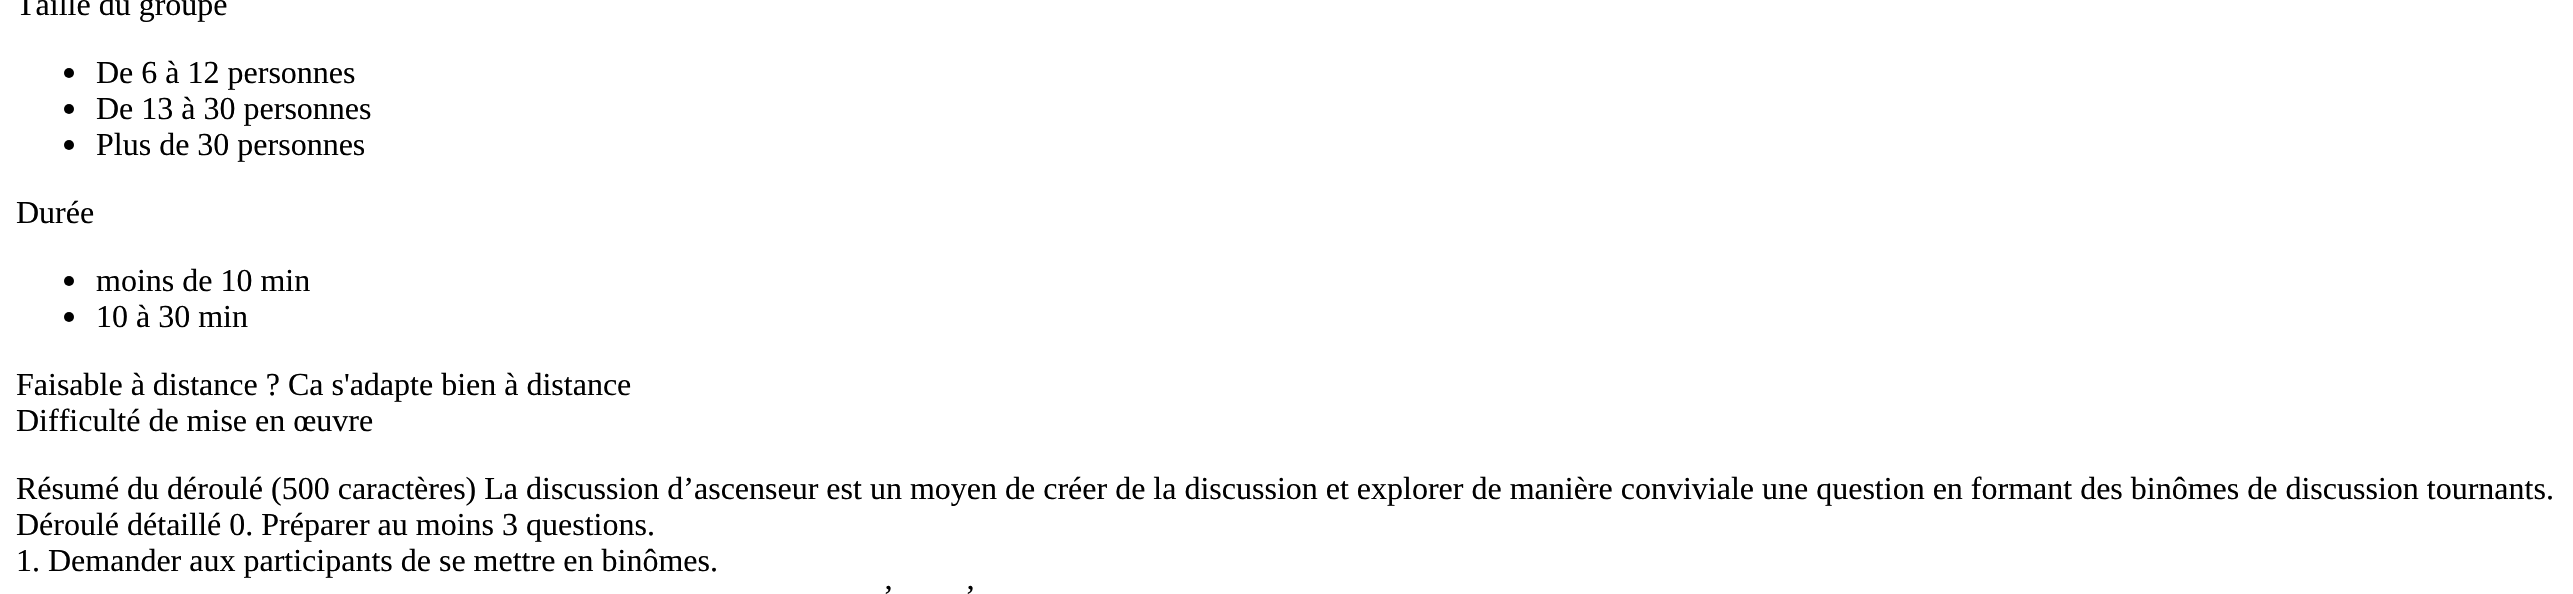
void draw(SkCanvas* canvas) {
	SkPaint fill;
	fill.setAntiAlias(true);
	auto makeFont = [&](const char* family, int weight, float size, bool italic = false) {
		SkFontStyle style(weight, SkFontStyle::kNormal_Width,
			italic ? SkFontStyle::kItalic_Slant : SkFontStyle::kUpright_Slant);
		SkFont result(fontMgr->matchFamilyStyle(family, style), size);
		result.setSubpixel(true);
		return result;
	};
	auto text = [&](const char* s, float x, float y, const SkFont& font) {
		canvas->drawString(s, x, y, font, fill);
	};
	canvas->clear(0xFFFFFFFF);
	fill.setColor(0xFF000000);
	canvas->drawCircle(69, 73, 5, fill);
	canvas->drawCircle(69, 109, 5, fill);
	canvas->drawCircle(69, 145, 5, fill);
	canvas->drawCircle(69, 281, 5, fill);
	canvas->drawCircle(69, 317, 5, fill);
	auto font1 = makeFont("Liberation Serif", 400, 32);
	text("Taille du groupe", 16, 15, font1);
	text("De 6 à 12 personnes", 96, 83, font1);
	text("De 13 à 30 personnes", 96, 119, font1);
	text("Plus de 30 personnes", 96, 155, font1);
	text("Durée", 16, 223, font1);
	text("moins de 10 min", 96, 291, font1);
	text("10 à 30 min", 96, 327, font1);
	text("Faisable à distance ? Ca s'adapte bien à distance", 16, 395, font1);
	text("Difficulté de mise en œuvre", 16, 431, font1);
	text("Résumé du déroulé (500 caractères) La discussion d’ascenseur est un moyen de créer de la discussion et explorer de manière conviviale une question en formant des binômes de discussion tournants.", 16, 499, font1);
	text("Déroulé détaillé 0. Préparer au moins 3 questions.", 16, 535, font1);
	text("1. Demander aux participants de se mettre en binômes.", 16, 571, font1);
	text("’", 883, 607, font1);
	text("’", 965, 607, font1);
}
